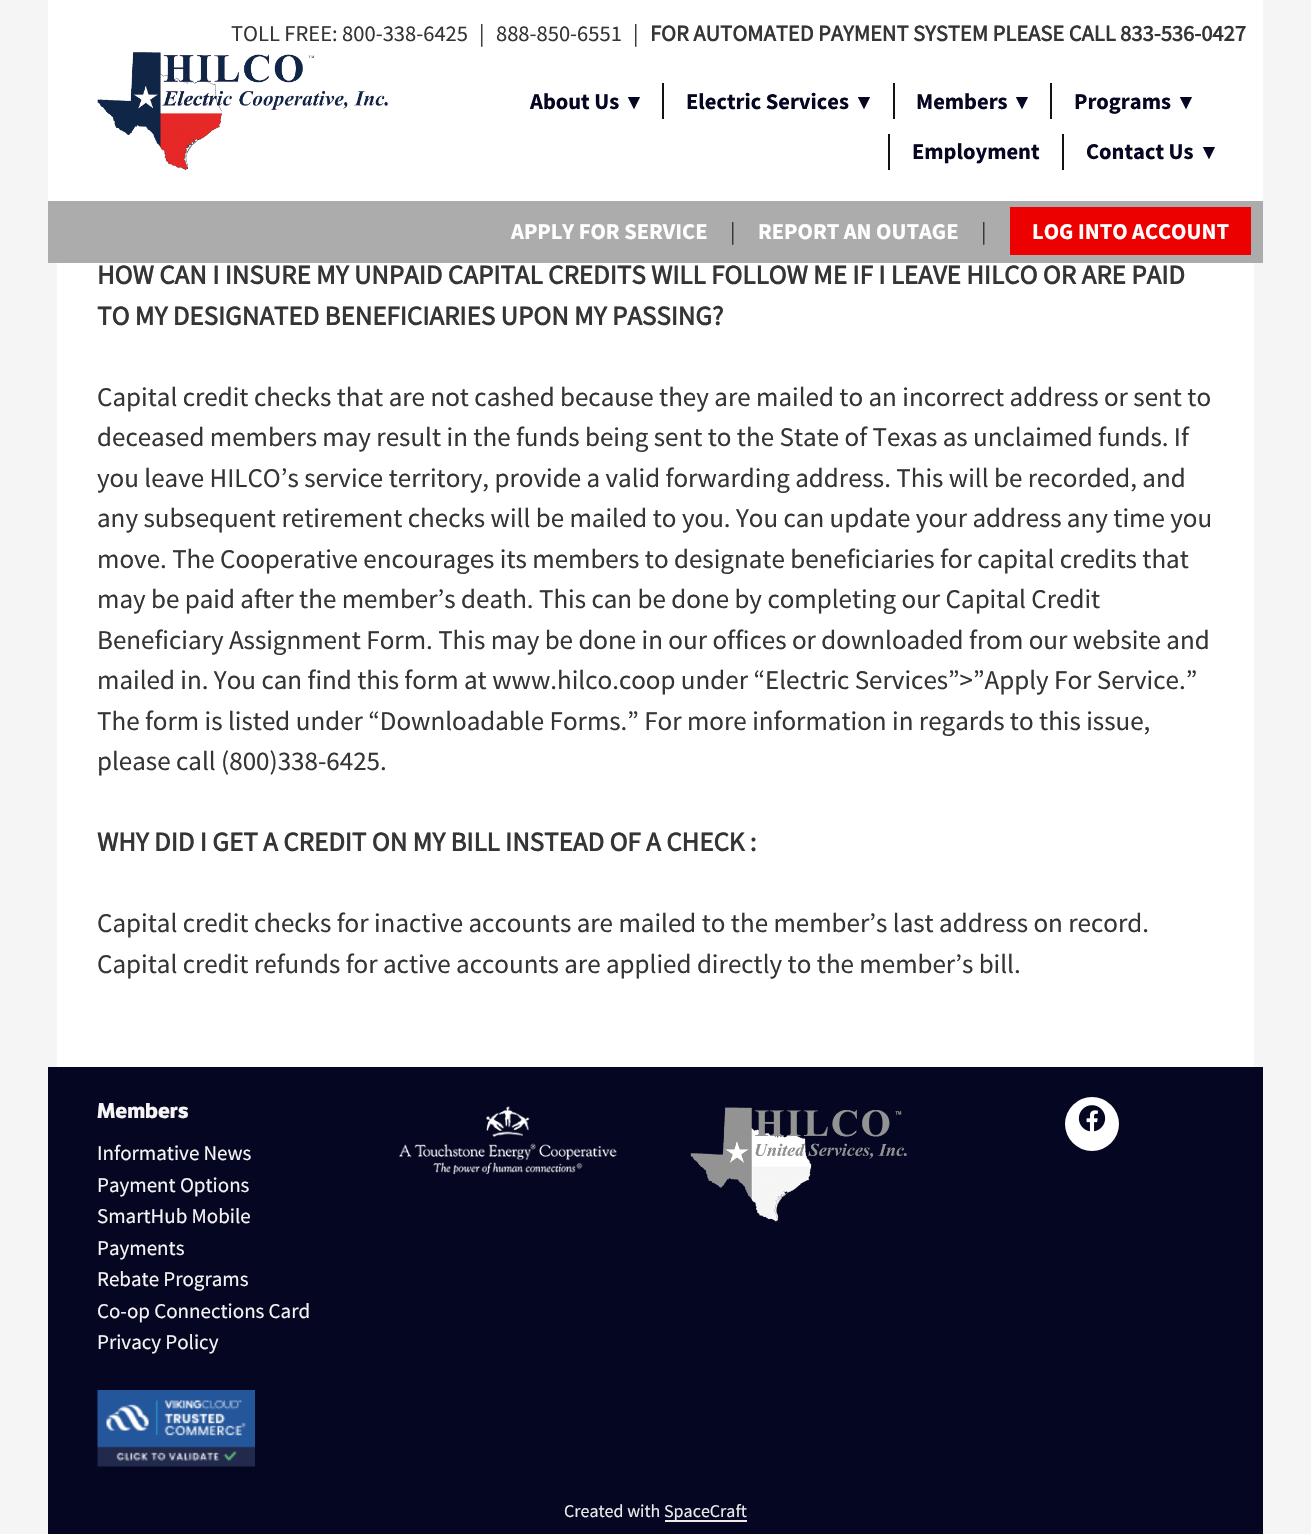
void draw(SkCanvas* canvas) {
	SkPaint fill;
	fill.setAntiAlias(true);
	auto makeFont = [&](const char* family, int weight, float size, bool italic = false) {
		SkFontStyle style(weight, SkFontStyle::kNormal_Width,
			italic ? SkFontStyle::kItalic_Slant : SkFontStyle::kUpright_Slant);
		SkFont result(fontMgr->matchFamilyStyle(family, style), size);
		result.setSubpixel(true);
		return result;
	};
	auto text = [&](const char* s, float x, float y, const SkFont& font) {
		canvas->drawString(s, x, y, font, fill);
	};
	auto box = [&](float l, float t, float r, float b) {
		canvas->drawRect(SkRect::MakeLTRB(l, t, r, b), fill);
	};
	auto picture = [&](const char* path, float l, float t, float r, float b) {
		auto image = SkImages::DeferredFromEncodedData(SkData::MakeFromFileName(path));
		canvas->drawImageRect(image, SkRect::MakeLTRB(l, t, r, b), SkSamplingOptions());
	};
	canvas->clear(0xFFF5F5F5);
	fill.setColor(0xFFFFFFFF);
	box(48, 0, 1263, 201);
	picture("image0.png", 97, 52, 388, 171);
	fill.setColor(0xFF131313);
	box(662, 83, 664, 119);
	box(893, 83, 895, 119);
	box(1050, 83, 1052, 119);
	box(888, 134, 890, 170);
	box(1062, 134, 1064, 170);
	fill.setColor(0xFFACACAC);
	box(48, 201, 1263, 263);
	fill.setColor(0xFFEC0000);
	box(1010, 207, 1251, 255);
	fill.setColor(0xFFFFFFFF);
	box(57, 263, 1254, 1067);
	fill.setColor(0xFF050622);
	box(48, 1067, 1263, 1534);
	picture("image1.png", 399, 1106, 617, 1174);
	picture("image2.png", 690, 1107, 907, 1222);
	fill.setColor(0xFFFFFFFF);
	canvas->drawCircle(1092, 1124, 27, fill);
	picture("image3.png", 1078, 1105, 1106, 1132);
	picture("image4.png", 97, 1390, 255, 1467);
	fill.setColor(0xFFEBEBEB);
	box(665, 1520, 747, 1522);
	auto font1 = makeFont("Source Sans Pro", 400, 22.5f);
	fill.setColor(0xFF353535);
	text("TOLL FREE: 800-338-6425", 231, 41, font1);
	text("|", 479, 41, font1);
	text("888-850-6551", 496, 41, font1);
	text("|", 633, 41, font1);
	auto font2 = makeFont("Source Sans Pro", 700, 22.5f);
	text("FOR AUTOMATED PAYMENT SYSTEM PLEASE CALL 833-536-0427", 650, 41, font2);
	auto font3 = makeFont("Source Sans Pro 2", 700, 22.5f);
	fill.setColor(0xFF050622);
	text("About Us", 530, 109, font3);
	auto font4 = makeFont("DejaVu Sans", 700, 22.5f);
	text("▾", 628, 109, font4);
	text("Electric Services", 686, 109, font3);
	text("▾", 858, 109, font4);
	text("Members", 916, 109, font3);
	text("▾", 1016, 109, font4);
	text("Programs", 1074, 109, font3);
	text("▾", 1180, 109, font4);
	text("Employment", 912, 159, font3);
	text("Contact Us", 1086, 159, font3);
	text("▾", 1203, 159, font4);
	fill.setColor(0xFFFFFFFF);
	text("APPLY FOR SERVICE", 511, 239, font3);
	fill.setColor(0xFF353535);
	text("|", 730, 239, font1);
	fill.setColor(0xFFFFFFFF);
	text("REPORT AN OUTAGE", 758, 239, font3);
	fill.setColor(0xFF353535);
	text("|", 981, 239, font1);
	fill.setColor(0xFFFFFFFF);
	text("LOG INTO ACCOUNT", 1032, 239, font3);
	auto font5 = makeFont("Source Sans Pro", 700, 27);
	fill.setColor(0xFF353535);
	text("HOW CAN I INSURE MY UNPAID CAPITAL CREDITS WILL FOLLOW ME IF I LEAVE HILCO OR ARE PAID", 97, 284, font5);
	text("TO MY DESIGNATED BENEFICIARIES UPON MY PASSING?", 97, 325, font5);
	auto font6 = makeFont("Source Sans Pro", 400, 27);
	text("Capital credit checks that are not cashed because they are mailed to an incorrect address or sent to", 97, 406, font6);
	text("deceased members may result in the funds being sent to the State of Texas as unclaimed funds. If", 97, 446, font6);
	text("you leave HILCO’s service territory, provide a valid forwarding address. This will be recorded, and", 97, 487, font6);
	text("any subsequent retirement checks will be mailed to you. You can update your address any time you", 97, 527, font6);
	text("move. The Cooperative encourages its members to designate beneficiaries for capital credits that", 97, 568, font6);
	text("may be paid after the member’s death. This can be done by completing our Capital Credit", 97, 608, font6);
	text("Beneficiary Assignment Form. This may be done in our offices or downloaded from our website and", 97, 649, font6);
	text("mailed in. You can find this form at www.hilco.coop under “Electric Services”>”Apply For Service.”", 97, 689, font6);
	text("The form is listed under “Downloadable Forms.” For more information in regards to this issue,", 97, 730, font6);
	text("please call (800)338-6425.", 97, 770, font6);
	text("WHY DID I GET A CREDIT ON MY BILL INSTEAD OF A CHECK :", 97, 851, font5);
	text("Capital credit checks for inactive accounts are mailed to the member’s last address on record.", 97, 932, font6);
	text("Capital credit refunds for active accounts are applied directly to the member’s bill.", 97, 973, font6);
	auto font7 = makeFont("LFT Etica", 700, 21);
	fill.setColor(0xFFF5F5F5);
	text("Members", 97, 1118, font7);
	auto font8 = makeFont("Source Sans Pro", 400, 21);
	text("Informative News", 97, 1160, font8);
	text("Payment Options", 97, 1192, font8);
	text("SmartHub Mobile", 97, 1223, font8);
	text("Payments", 97, 1255, font8);
	text("Rebate Programs", 97, 1286, font8);
	text("Co-op Connections Card", 97, 1318, font8);
	text("Privacy Policy", 97, 1349, font8);
	auto font9 = makeFont("Source Sans Pro", 400, 18);
	fill.setColor(0xFFEBEBEB);
	text("Created with", 564, 1517, font9);
	text("SpaceCraft", 664, 1517, font9);
}
